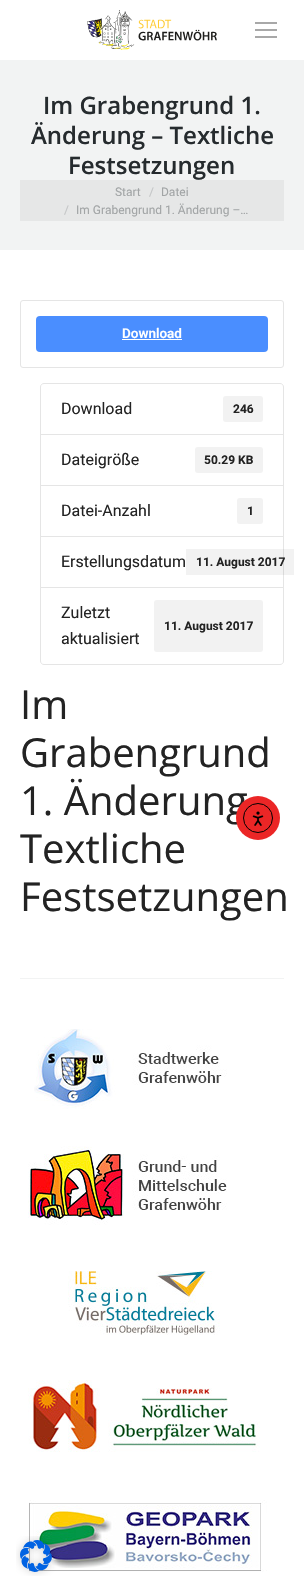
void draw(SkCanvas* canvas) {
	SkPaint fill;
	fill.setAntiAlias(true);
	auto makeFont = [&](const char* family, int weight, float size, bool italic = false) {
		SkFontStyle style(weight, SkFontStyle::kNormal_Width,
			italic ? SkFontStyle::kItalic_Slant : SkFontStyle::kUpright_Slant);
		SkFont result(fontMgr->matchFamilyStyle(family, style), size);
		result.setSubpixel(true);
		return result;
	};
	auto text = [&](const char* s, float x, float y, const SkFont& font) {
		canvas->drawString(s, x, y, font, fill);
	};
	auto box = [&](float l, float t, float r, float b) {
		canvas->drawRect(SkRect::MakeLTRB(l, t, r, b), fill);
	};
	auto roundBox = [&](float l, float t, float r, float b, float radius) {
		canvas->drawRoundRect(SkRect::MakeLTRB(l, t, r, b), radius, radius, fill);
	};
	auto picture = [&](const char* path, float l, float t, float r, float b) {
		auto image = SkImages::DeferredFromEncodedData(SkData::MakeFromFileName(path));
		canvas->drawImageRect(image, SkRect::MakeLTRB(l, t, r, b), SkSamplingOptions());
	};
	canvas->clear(0xFFFFFFFF);
	picture("image0.png", 87, 10, 217, 50);
	fill.setColor(0xFFA8A8A8);
	box(255, 22, 277, 24);
	box(255, 29, 277, 31);
	box(255, 36, 277, 38);
	fill.setColor(0xFFF2F3F3);
	box(0, 60, 304, 250);
	fill.setColor(0xFFE6E7E7);
	box(20, 180, 284, 221);
	fill.setStyle(SkPaint::kStroke_Style);
	fill.setStrokeWidth(1);
	fill.setColor(0xFFE5E5E5);
	canvas->drawRoundRect(SkRect::MakeLTRB(20.5f, 300.5f, 283.5f, 367.5f), 2.5f, 2.5f, fill);
	fill.setStyle(SkPaint::kFill_Style);
	fill.setColor(0xFF4A8EFF);
	roundBox(36, 316, 268, 352, 4);
	fill.setColor(0xFFFFFFFF);
	box(122, 339, 182, 340);
	fill.setStyle(SkPaint::kStroke_Style);
	fill.setColor(0xFFE5E5E5);
	canvas->drawPath(SkPathBuilder().moveTo(44, 383.5f).lineTo(280, 383.5f).cubicTo(282, 383.5f, 283.5f, 385, 283.5f, 387).lineTo(283.5f, 434.5f).lineTo(40.5f, 434.5f).lineTo(40.5f, 387).cubicTo(40.5f, 385, 42, 383.5f, 44, 383.5f).close().detach(), fill);
	fill.setStyle(SkPaint::kFill_Style);
	fill.setColor(0xFFF2F2F2);
	roundBox(223, 396, 263, 422, 3);
	fill.setStyle(SkPaint::kStroke_Style);
	fill.setColor(0xFFE5E5E5);
	canvas->drawRect(SkRect::MakeLTRB(40.5f, 434.5f, 283.5f, 485.5f), fill);
	fill.setStyle(SkPaint::kFill_Style);
	fill.setColor(0xFFF2F2F2);
	roundBox(195, 447, 263, 473, 3);
	fill.setStyle(SkPaint::kStroke_Style);
	fill.setColor(0xFFE5E5E5);
	canvas->drawRect(SkRect::MakeLTRB(40.5f, 485.5f, 283.5f, 536.5f), fill);
	fill.setStyle(SkPaint::kFill_Style);
	fill.setColor(0xFFF2F2F2);
	roundBox(237, 498, 263, 524, 3);
	fill.setStyle(SkPaint::kStroke_Style);
	fill.setColor(0xFFE5E5E5);
	canvas->drawRect(SkRect::MakeLTRB(40.5f, 536.5f, 283.5f, 587.5f), fill);
	fill.setStyle(SkPaint::kFill_Style);
	fill.setColor(0x0D000000);
	box(186, 549, 294, 575);
	fill.setColor(0xFFFFFFFF);
	canvas->drawPath(SkPathBuilder().moveTo(40.5f, 587.5f).lineTo(283.5f, 587.5f).lineTo(283.5f, 661).cubicTo(283.5f, 663, 282, 664.5f, 280, 664.5f).lineTo(44, 664.5f).cubicTo(42, 664.5f, 40.5f, 663, 40.5f, 661).close().detach(), fill);
	fill.setStyle(SkPaint::kStroke_Style);
	fill.setColor(0xFFE5E5E5);
	canvas->drawPath(SkPathBuilder().moveTo(40.5f, 587.5f).lineTo(283.5f, 587.5f).lineTo(283.5f, 661).cubicTo(283.5f, 663, 282, 664.5f, 280, 664.5f).lineTo(44, 664.5f).cubicTo(42, 664.5f, 40.5f, 663, 40.5f, 661).close().detach(), fill);
	fill.setStyle(SkPaint::kFill_Style);
	fill.setColor(0xFFF2F2F2);
	roundBox(154, 600, 263, 652, 3);
	fill.setColor(0xFFF2F3F3);
	box(20, 978, 284, 979);
	picture("image1.png", 34, 1029, 227, 1109);
	picture("image2.png", 28, 1146, 227, 1225);
	picture("image3.png", 68, 1271, 220, 1335);
	picture("image4.png", 28, 1380, 260, 1452);
	picture("image5.png", 29, 1500, 267, 1572);
	picture("image7.png", 16, 1536, 56, 1576);
	auto font1 = makeFont("Open Sans", 600, 24);
	fill.setColor(0xFF262B2E);
	text("Im Grabengrund 1.", 43, 114, font1);
	text("Änderung – Textliche", 31, 144, font1);
	text("Festsetzungen", 68, 174, font1);
	auto font2 = makeFont("Roboto", 400, 12);
	fill.setColor(0xFFA2A5A6);
	text("Start", 115, 196, font2);
	fill.setColor(0xFFC4C6C7);
	text("/", 149, 196, font2);
	fill.setColor(0xFFA2A5A6);
	text("Datei", 161, 196, font2);
	fill.setColor(0xFFC4C6C7);
	text("/", 64, 214, font2);
	fill.setColor(0xFFA2A5A6);
	text("Im Grabengrund 1. Änderung –…", 76, 214, font2);
	auto font3 = makeFont("Roboto", 600, 13.5f);
	fill.setColor(0xFFFFFFFF);
	text("Download", 122, 338, font3);
	auto font4 = makeFont("Roboto", 400, 16);
	fill.setColor(0xFF232323);
	text("Download", 61, 414, font4);
	auto font5 = makeFont("Roboto", 700, 12);
	text("246", 233, 413, font5);
	text("Dateigröße", 61, 465, font4);
	text("50.29 KB", 204, 464, font5);
	text("Datei-Anzahl", 61, 516, font4);
	text("1", 247, 515, font5);
	text("Erstellungsdatum", 61, 567, font4);
	text("11. August 2017", 196, 566, font5);
	text("Zuletzt", 61, 618, font4);
	text("11. August 2017", 164, 630, font5);
	text("aktualisiert", 61, 644, font4);
	auto font6 = makeFont("Open Sans", 400, 40);
	text("Im", 20, 719, font6);
	text("Grabengrund", 20, 767, font6);
	text("1. Änderung", 20, 815, font6);
	text("Textliche", 20, 863, font6);
	text("Festsetzungen", 20, 911, font6);
	fill.setColor(0xFFEB2626);
	canvas->drawCircle(258, 818, 22, fill);
	fill.setStyle(SkPaint::kStroke_Style);
	fill.setColor(0xFF000000);
	canvas->drawCircle(258, 818, 14.5f, fill);
	picture("image6.png", 252, 811, 264, 826);
}
